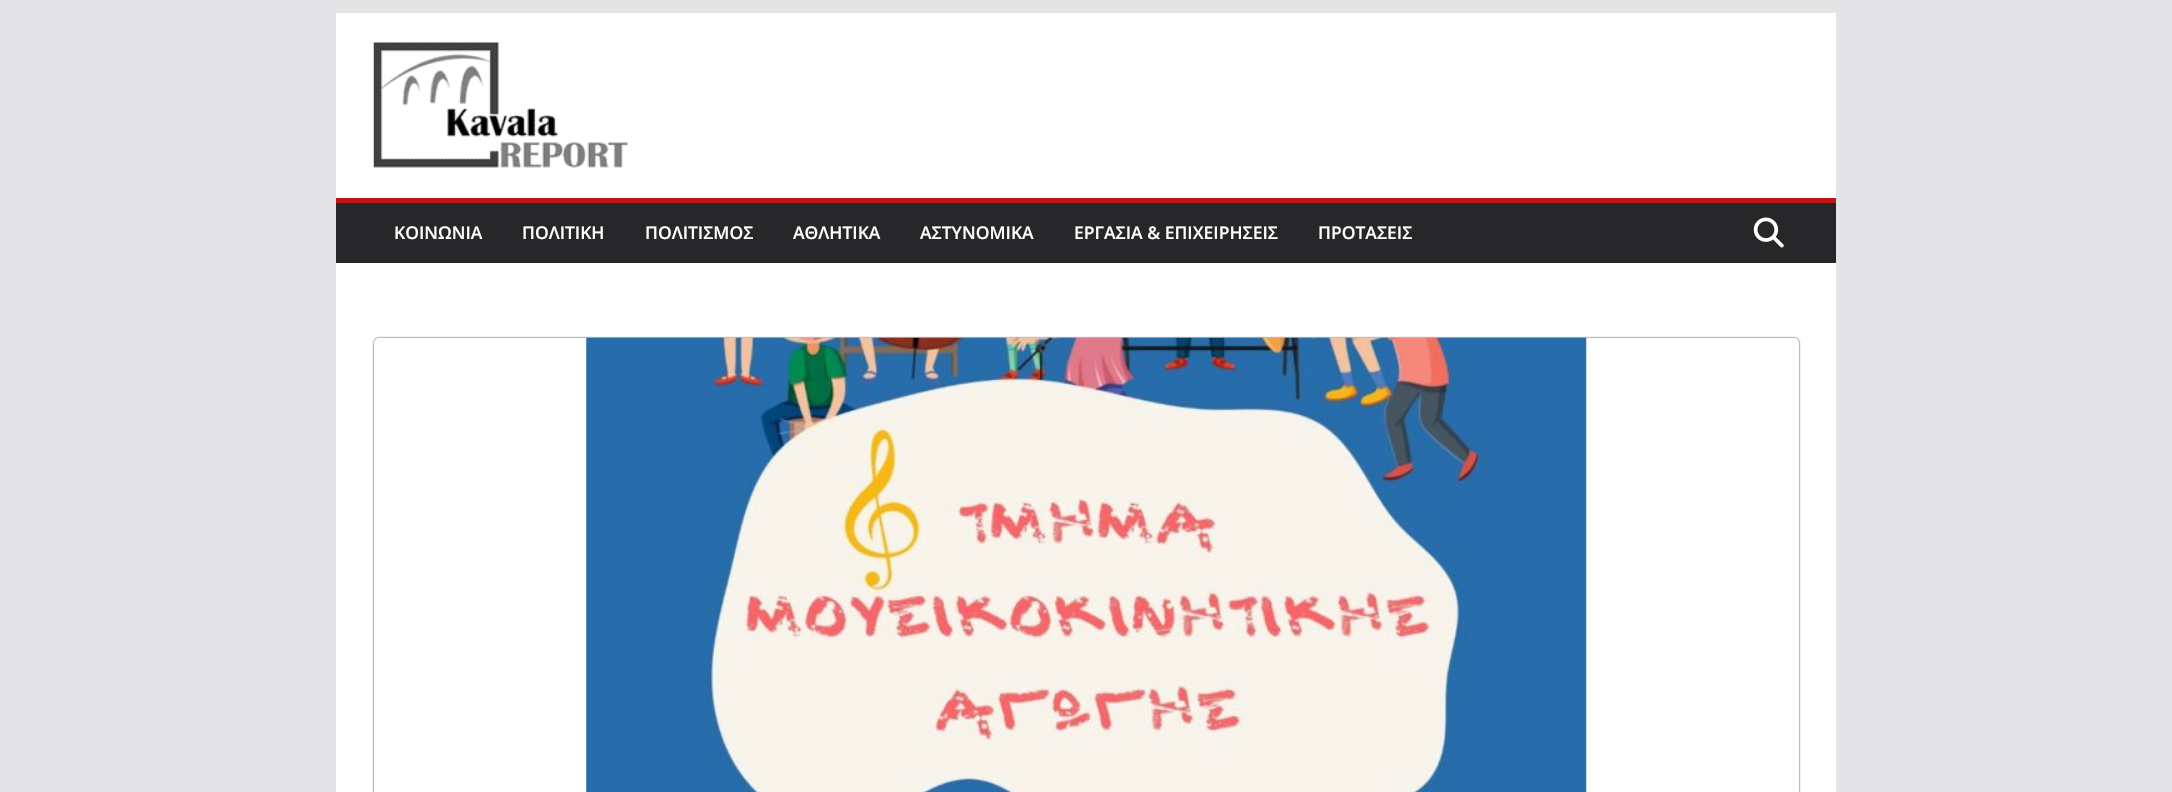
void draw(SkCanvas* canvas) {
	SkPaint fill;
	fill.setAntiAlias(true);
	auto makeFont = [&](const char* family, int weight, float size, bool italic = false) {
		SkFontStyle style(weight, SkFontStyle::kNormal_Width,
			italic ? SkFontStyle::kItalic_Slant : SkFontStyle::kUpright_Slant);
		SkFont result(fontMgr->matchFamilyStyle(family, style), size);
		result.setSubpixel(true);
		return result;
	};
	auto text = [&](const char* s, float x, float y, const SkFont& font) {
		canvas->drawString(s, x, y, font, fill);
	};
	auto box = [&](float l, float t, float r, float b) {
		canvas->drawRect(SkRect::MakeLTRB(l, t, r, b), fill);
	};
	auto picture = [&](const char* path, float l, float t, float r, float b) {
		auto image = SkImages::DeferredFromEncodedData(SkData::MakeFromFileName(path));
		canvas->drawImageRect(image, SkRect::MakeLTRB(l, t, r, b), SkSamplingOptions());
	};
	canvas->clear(0xFFE4E4E7);
	fill.setColor(0xFFFFFFFF);
	box(336, 13, 1836, 198);
	picture("image0.png", 373, 42, 628, 168);
	fill.setColor(0xFF27272A);
	box(336, 203, 1836, 263);
	fill.setColor(0xFFC11415);
	box(336, 198, 1836, 203);
	picture("image1.png", 1753, 217, 1784, 248);
	fill.setColor(0xFFFFFFFF);
	box(336, 263, 1836, 792);
	canvas->save();
	canvas->clipPath(SkPathBuilder(SkPathFillType::kEvenOdd).moveTo(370, 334).lineTo(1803, 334).lineTo(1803, 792).lineTo(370, 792).close().moveTo(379, 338).lineTo(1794, 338).cubicTo(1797, 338, 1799, 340, 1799, 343).lineTo(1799, 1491).cubicTo(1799, 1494, 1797, 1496, 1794, 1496).lineTo(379, 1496).cubicTo(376, 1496, 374, 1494, 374, 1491).lineTo(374, 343).cubicTo(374, 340, 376, 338, 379, 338).close().detach(), true);
	fill.setColor(0xFF000000);
	fill.setMaskFilter(SkMaskFilter::MakeBlur(kNormal_SkBlurStyle, 1));
	canvas->drawRoundRect(SkRect::MakeLTRB(374, 338, 1799, 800), 5, 5, fill);
	fill.setMaskFilter(nullptr);
	canvas->restore();
	picture("image2.png", 586, 337, 1587, 792);
	auto font1 = makeFont("Open Sans", 600, 17.5f);
	fill.setColor(0xFFFFFFFF);
	text("ΚΟΙΝΩΝΙΑ", 394, 239, font1);
	text("ΠΟΛΙΤΙΚΗ", 522, 239, font1);
	text("ΠΟΛΙΤΙΣΜΟΣ", 645, 239, font1);
	text("ΑΘΛΗΤΙΚΑ", 793, 239, font1);
	text("ΑΣΤΥΝΟΜΙΚΑ", 920, 239, font1);
	text("ΕΡΓΑΣΙΑ & ΕΠΙΧΕΙΡΗΣΕΙΣ", 1074, 239, font1);
	text("ΠΡΟΤΑΣΕΙΣ", 1318, 239, font1);
}
